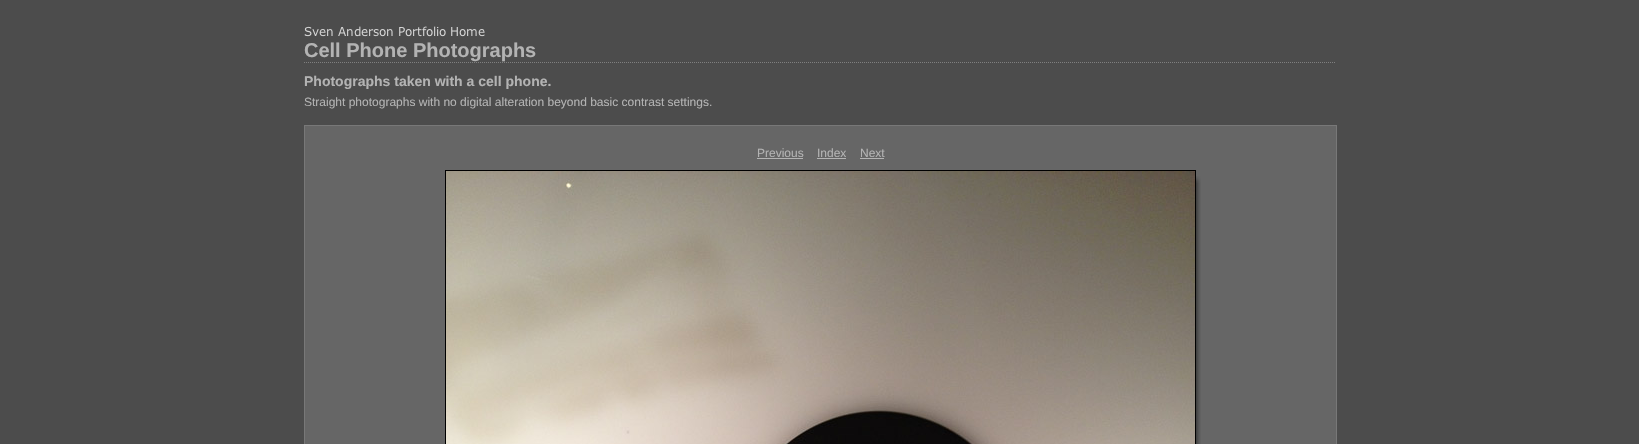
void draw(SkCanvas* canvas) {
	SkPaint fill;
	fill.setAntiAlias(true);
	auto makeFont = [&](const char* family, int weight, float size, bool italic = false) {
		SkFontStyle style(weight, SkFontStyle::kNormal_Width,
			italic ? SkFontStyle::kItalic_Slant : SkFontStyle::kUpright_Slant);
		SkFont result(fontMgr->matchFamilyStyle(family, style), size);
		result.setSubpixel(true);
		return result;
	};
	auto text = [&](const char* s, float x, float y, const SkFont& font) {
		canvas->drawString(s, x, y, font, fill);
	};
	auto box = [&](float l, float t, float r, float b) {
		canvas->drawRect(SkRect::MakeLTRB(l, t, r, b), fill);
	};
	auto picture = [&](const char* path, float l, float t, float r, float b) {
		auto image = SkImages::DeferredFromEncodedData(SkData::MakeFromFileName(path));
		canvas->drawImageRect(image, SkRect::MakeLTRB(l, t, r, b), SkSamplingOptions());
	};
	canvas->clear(0xFF4C4C4C);
	picture("image0.png", 304, 26, 485, 37);
	fill.setStyle(SkPaint::kStroke_Style);
	fill.setStrokeWidth(1);
	fill.setColor(0xFF7F7F7F);
	fill.setPathEffect(SkDashPathEffect::Make({{1, 1}}, 0));
	canvas->drawPath(SkPathBuilder().moveTo(304, 62.5f).lineTo(1335, 62.5f).detach(), fill);
	fill.setPathEffect(nullptr);
	fill.setStyle(SkPaint::kFill_Style);
	fill.setColor(0xFF666666);
	canvas->drawRect(SkRect::MakeLTRB(304.5f, 125.5f, 1336.5f, 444.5f), fill);
	fill.setStyle(SkPaint::kStroke_Style);
	fill.setColor(0xFF787878);
	canvas->drawRect(SkRect::MakeLTRB(304.5f, 125.5f, 1336.5f, 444.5f), fill);
	fill.setStyle(SkPaint::kFill_Style);
	fill.setColor(0xFFB3B3B3);
	box(757, 158, 803, 159);
	box(817, 158, 846, 159);
	box(860, 158, 884, 159);
	picture("image1.png", 1196, 183, 1201, 444);
	fill.setStyle(SkPaint::kStroke_Style);
	fill.setColor(0xFF000000);
	canvas->drawRect(SkRect::MakeLTRB(445.5f, 170.5f, 1195.5f, 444.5f), fill);
	picture("image2.png", 446, 171, 1195, 444);
	picture("image3.png", 1196, 176, 1201, 183);
	auto font1 = makeFont("Liberation Sans", 700, 20);
	fill.setStyle(SkPaint::kFill_Style);
	fill.setColor(0xFFB3B3B3);
	text("Cell Phone Photographs", 304, 57, font1);
	auto font2 = makeFont("Liberation Sans", 700, 14);
	text("Photographs taken with a cell phone.", 304, 86, font2);
	auto font3 = makeFont("Liberation Sans", 400, 12);
	text("Straight photographs with no digital alteration beyond basic contrast settings.", 304, 106, font3);
	text("Previous", 757, 157, font3);
	text("Index", 817, 157, font3);
	text("Next", 860, 157, font3);
}
